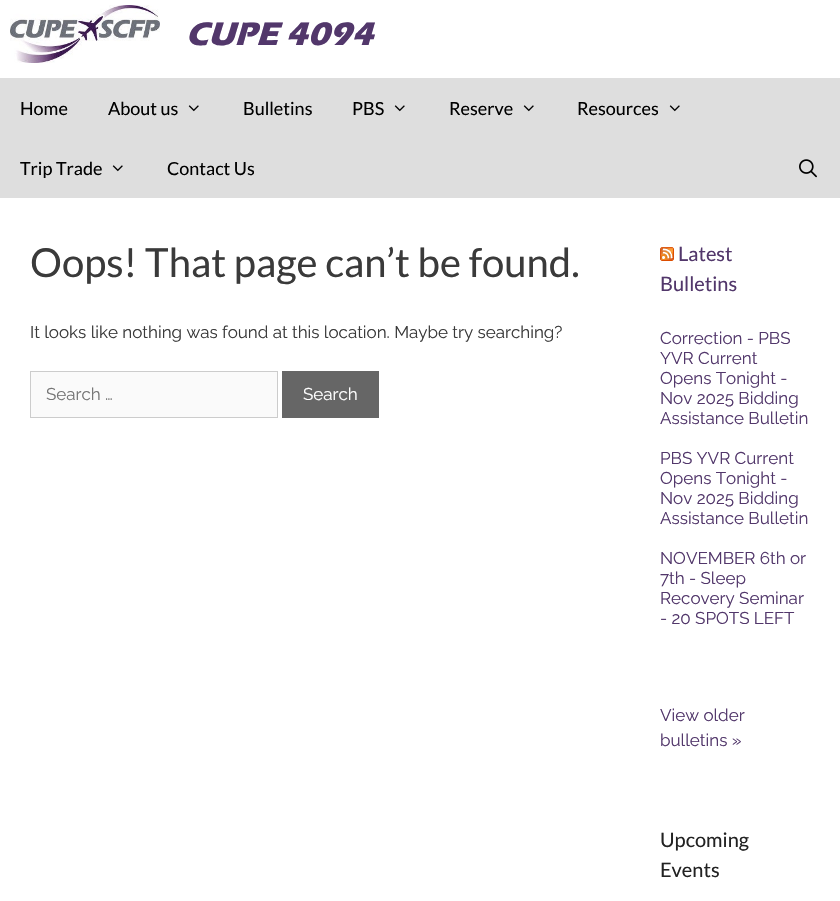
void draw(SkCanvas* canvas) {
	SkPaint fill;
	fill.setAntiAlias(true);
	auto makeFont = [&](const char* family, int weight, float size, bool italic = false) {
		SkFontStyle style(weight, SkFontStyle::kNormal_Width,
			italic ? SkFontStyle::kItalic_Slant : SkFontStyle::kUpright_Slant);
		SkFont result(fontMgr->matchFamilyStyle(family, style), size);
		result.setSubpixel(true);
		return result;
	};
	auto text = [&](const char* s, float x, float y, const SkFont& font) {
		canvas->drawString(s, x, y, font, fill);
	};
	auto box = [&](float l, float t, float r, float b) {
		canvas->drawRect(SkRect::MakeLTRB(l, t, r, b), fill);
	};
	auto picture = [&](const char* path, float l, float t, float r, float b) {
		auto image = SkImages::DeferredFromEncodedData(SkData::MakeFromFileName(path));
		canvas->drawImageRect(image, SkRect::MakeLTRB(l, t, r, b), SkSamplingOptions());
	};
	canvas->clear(0xFFFFFFFF);
	picture("image0.png", 10, 5, 160, 63);
	fill.setColor(0xFFDEDEDE);
	box(0, 78, 840, 198);
	picture("image1.png", 188, 105, 199, 112);
	picture("image1.png", 394, 105, 405, 112);
	picture("image1.png", 523, 105, 534, 112);
	picture("image1.png", 669, 105, 680, 112);
	picture("image1.png", 112, 165, 123, 172);
	picture("image2.png", 799, 159, 817, 178);
	fill.setColor(0xFFFAFAFA);
	canvas->drawRect(SkRect::MakeLTRB(30.5f, 371.5f, 277.5f, 417.5f), fill);
	fill.setStyle(SkPaint::kStroke_Style);
	fill.setStrokeWidth(1);
	fill.setColor(0xFFCCCCCC);
	canvas->drawRect(SkRect::MakeLTRB(30.5f, 371.5f, 277.5f, 417.5f), fill);
	fill.setStyle(SkPaint::kFill_Style);
	fill.setColor(0xFF666666);
	box(282, 371, 379, 418);
	picture("image3.png", 660, 247, 674, 261);
	auto font1 = makeFont("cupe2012", 700, 32, true);
	fill.setColor(0xFF52376B);
	text("CUPE 4094", 186, 45, font1);
	auto font2 = makeFont("Lato", 400, 18);
	fill.setColor(0xFF000000);
	text("Home", 20, 115, font2);
	text("About us", 108, 115, font2);
	text("Bulletins", 243, 115, font2);
	text("PBS", 352, 115, font2);
	text("Reserve", 449, 115, font2);
	text("Resources", 577, 115, font2);
	text("Trip Trade", 20, 175, font2);
	text("Contact Us", 167, 175, font2);
	auto font3 = makeFont("Lato", 400, 40);
	fill.setColor(0xFF3A3A3A);
	text("Oops! That page can’t be found.", 30, 277, font3);
	auto font4 = makeFont("Raleway", 400, 17);
	text("It looks like nothing was found at this location. Maybe try searching?", 30, 338, font4);
	fill.setColor(0xFF757575);
	text("Search …", 46, 400, font4);
	fill.setColor(0xFFFFFFFF);
	text("Search", 303, 400, font4);
	auto font5 = makeFont("Lato", 400, 20);
	fill.setColor(0xFF52376B);
	text("Latest", 678, 261, font5);
	text("Bulletins", 660, 291, font5);
	text("Correction - PBS", 660, 344, font4);
	text("YVR Current", 660, 364, font4);
	text("Opens Tonight -", 660, 384, font4);
	text("Nov 2025 Bidding", 660, 404, font4);
	text("Assistance Bulletin", 660, 424, font4);
	text("PBS YVR Current", 660, 464, font4);
	text("Opens Tonight -", 660, 484, font4);
	text("Nov 2025 Bidding", 660, 504, font4);
	text("Assistance Bulletin", 660, 524, font4);
	text("NOVEMBER 6th or", 660, 564, font4);
	text("7th - Sleep", 660, 584, font4);
	text("Recovery Seminar", 660, 604, font4);
	text("- 20 SPOTS LEFT", 660, 624, font4);
	text("View older", 660, 721, font4);
	text("bulletins »", 660, 746, font4);
	fill.setColor(0xFF222222);
	text("Upcoming", 660, 847, font5);
	text("Events", 660, 877, font5);
}
